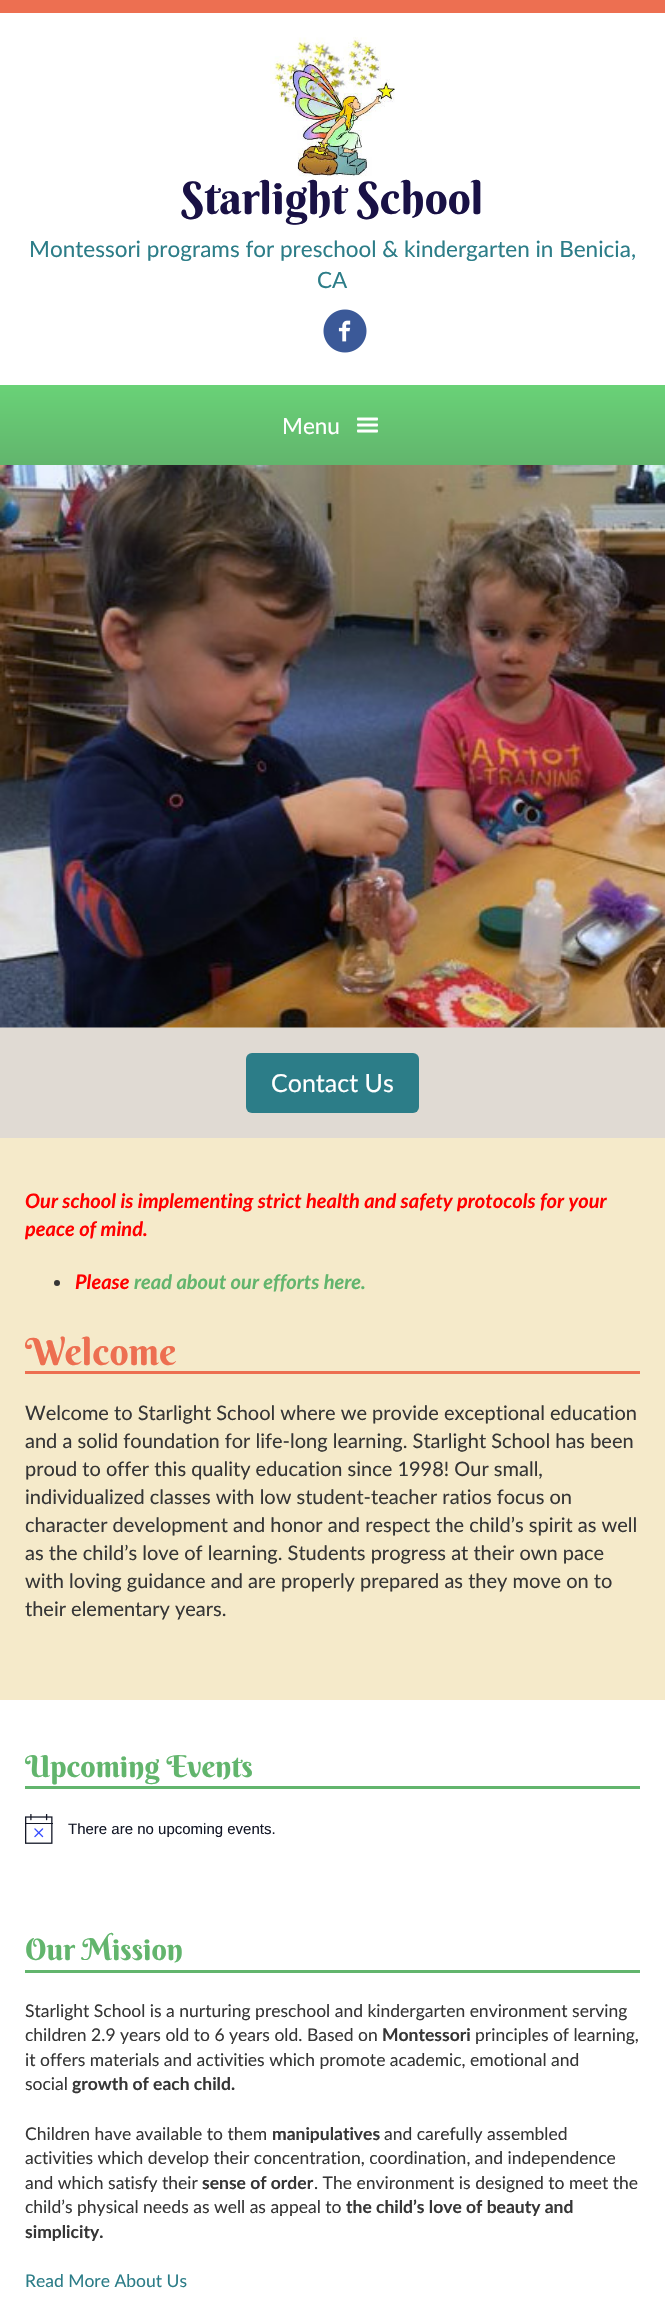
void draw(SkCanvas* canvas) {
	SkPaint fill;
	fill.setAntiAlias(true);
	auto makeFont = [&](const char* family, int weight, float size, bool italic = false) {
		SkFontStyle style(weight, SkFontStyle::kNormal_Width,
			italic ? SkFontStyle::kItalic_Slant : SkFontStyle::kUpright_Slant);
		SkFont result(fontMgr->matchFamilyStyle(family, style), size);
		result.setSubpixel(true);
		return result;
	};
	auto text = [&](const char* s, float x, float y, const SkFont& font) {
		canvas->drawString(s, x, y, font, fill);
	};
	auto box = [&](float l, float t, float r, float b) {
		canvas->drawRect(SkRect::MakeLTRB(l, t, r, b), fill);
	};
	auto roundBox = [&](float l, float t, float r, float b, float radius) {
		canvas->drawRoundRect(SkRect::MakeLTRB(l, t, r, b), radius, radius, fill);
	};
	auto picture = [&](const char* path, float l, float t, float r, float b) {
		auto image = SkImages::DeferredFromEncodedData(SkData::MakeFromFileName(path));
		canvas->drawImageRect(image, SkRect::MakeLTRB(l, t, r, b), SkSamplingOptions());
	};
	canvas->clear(0xFFFFFFFF);
	fill.setColor(0xFFED6F51);
	box(0, 0, 665, 13);
	picture("image0.png", 270, 37, 395, 177);
	picture("image1.png", 323, 309, 367, 353);
	{
		const SkColor colors[] = {0xFF69D277, 0xFF62B56D};
		const float stops[] = {0, 1};
		const SkPoint ends[] = {{333, 385}, {333, 465}};
		fill.setShader(SkGradientShader::MakeLinear(ends, colors, stops, 2, SkTileMode::kClamp));
		fill.setAlpha(255);
	}
	box(0, 385, 665, 465);
	picture("image2.png", 357, 417, 378, 433);
	fill.setShader(nullptr);
	fill.setColor(0xFFF5EACA);
	box(0, 1138, 665, 1700);
	fill.setColor(0xFFE0DAD3);
	box(0, 1027, 665, 1138);
	picture("image3.png", 0, 465, 665, 1028);
	fill.setColor(0xFF2C7D88);
	roundBox(246, 1053, 419, 1113, 6);
	fill.setColor(0xFF363636);
	canvas->drawCircle(57, 1283, 3, fill);
	fill.setColor(0xFFED6F51);
	box(25, 1371, 640, 1374);
	fill.setColor(0xFF62B56D);
	box(25, 1786, 640, 1789);
	picture("image4.png", 25, 1814, 53, 1844);
	box(25, 1970, 640, 1973);
	auto font1 = makeFont("Berkshire Swash", 400, 45);
	fill.setColor(0xFF191145);
	text("Starlight School", 181, 214, font1);
	auto font2 = makeFont("Lato", 400, 22.5f);
	fill.setColor(0xFF2C7D88);
	text("Montessori programs for preschool & kindergarten in Benicia,", 29, 257, font2);
	text("CA", 317, 288, font2);
	fill.setColor(0xFFFFFFFF);
	text("Menu", 282, 434, font2);
	auto font3 = makeFont("Lato", 400, 25);
	text("Contact Us", 271, 1092, font3);
	auto font4 = makeFont("Lato", 700, 20, true);
	fill.setColor(0xFFFF0000);
	text("Our school is implementing strict health and safety protocols for your", 25, 1208, font4);
	text("peace of mind.", 25, 1236, font4);
	text("Please", 75, 1289, font4);
	fill.setColor(0xFF62B56D);
	text("read about our efforts here.", 134, 1289, font4);
	auto font5 = makeFont("Berkshire Swash", 400, 37.5f);
	fill.setColor(0xFFED6F51);
	text("Welcome", 25, 1365, font5);
	auto font6 = makeFont("Lato", 400, 20);
	fill.setColor(0xFF363636);
	text("Welcome to Starlight School where we provide exceptional education", 25, 1420, font6);
	text("and a solid foundation for life-long learning. Starlight School has been", 25, 1448, font6);
	text("proud to offer this quality education since 1998! Our small,", 25, 1476, font6);
	text("individualized classes with low student-teacher ratios focus on", 25, 1504, font6);
	text("character development and honor and respect the child’s spirit as well", 25, 1532, font6);
	text("as the child’s love of learning. Students progress at their own pace", 25, 1560, font6);
	text("with loving guidance and are properly prepared as they move on to", 25, 1588, font6);
	text("their elementary years.", 25, 1616, font6);
	auto font7 = makeFont("Berkshire Swash", 400, 30);
	fill.setColor(0xFF62B56D);
	text("Upcoming Events", 25, 1777, font7);
	auto font8 = makeFont("Liberation Sans", 400, 15);
	fill.setColor(0xFF141827);
	text("There are no upcoming events.", 68, 1834, font8);
	fill.setColor(0xFF62B56D);
	text("Our Mission", 25, 1960, font7);
	auto font9 = makeFont("Lato", 400, 17.5f);
	fill.setColor(0xFF363636);
	text("Starlight School is a nurturing preschool and kindergarten environment serving", 25, 2017, font9);
	text("children 2.9 years old to 6 years old. Based on", 25, 2041, font9);
	auto font10 = makeFont("Lato", 700, 17.5f);
	text("Montessori", 382, 2041, font10);
	text("principles of learning,", 475, 2041, font9);
	text("it offers materials and activities which promote academic, emotional and", 25, 2066, font9);
	text("social", 25, 2090, font9);
	text("growth of each child.", 72, 2090, font10);
	text("Children have available to them", 25, 2140, font9);
	text("manipulatives", 272, 2140, font10);
	text("and carefully assembled", 384, 2140, font9);
	text("activities which develop their concentration, coordination, and independence", 25, 2164, font9);
	text("and which satisfy their", 25, 2189, font9);
	text("sense of order", 202, 2189, font10);
	text(". The environment is designed to meet the", 314, 2189, font9);
	text("child’s physical needs as well as appeal to", 25, 2213, font9);
	text("the child’s love of beauty and", 346, 2213, font10);
	text("simplicity.", 25, 2238, font10);
	fill.setColor(0xFF2C7D88);
	text("Read More About Us", 25, 2287, font9);
}
